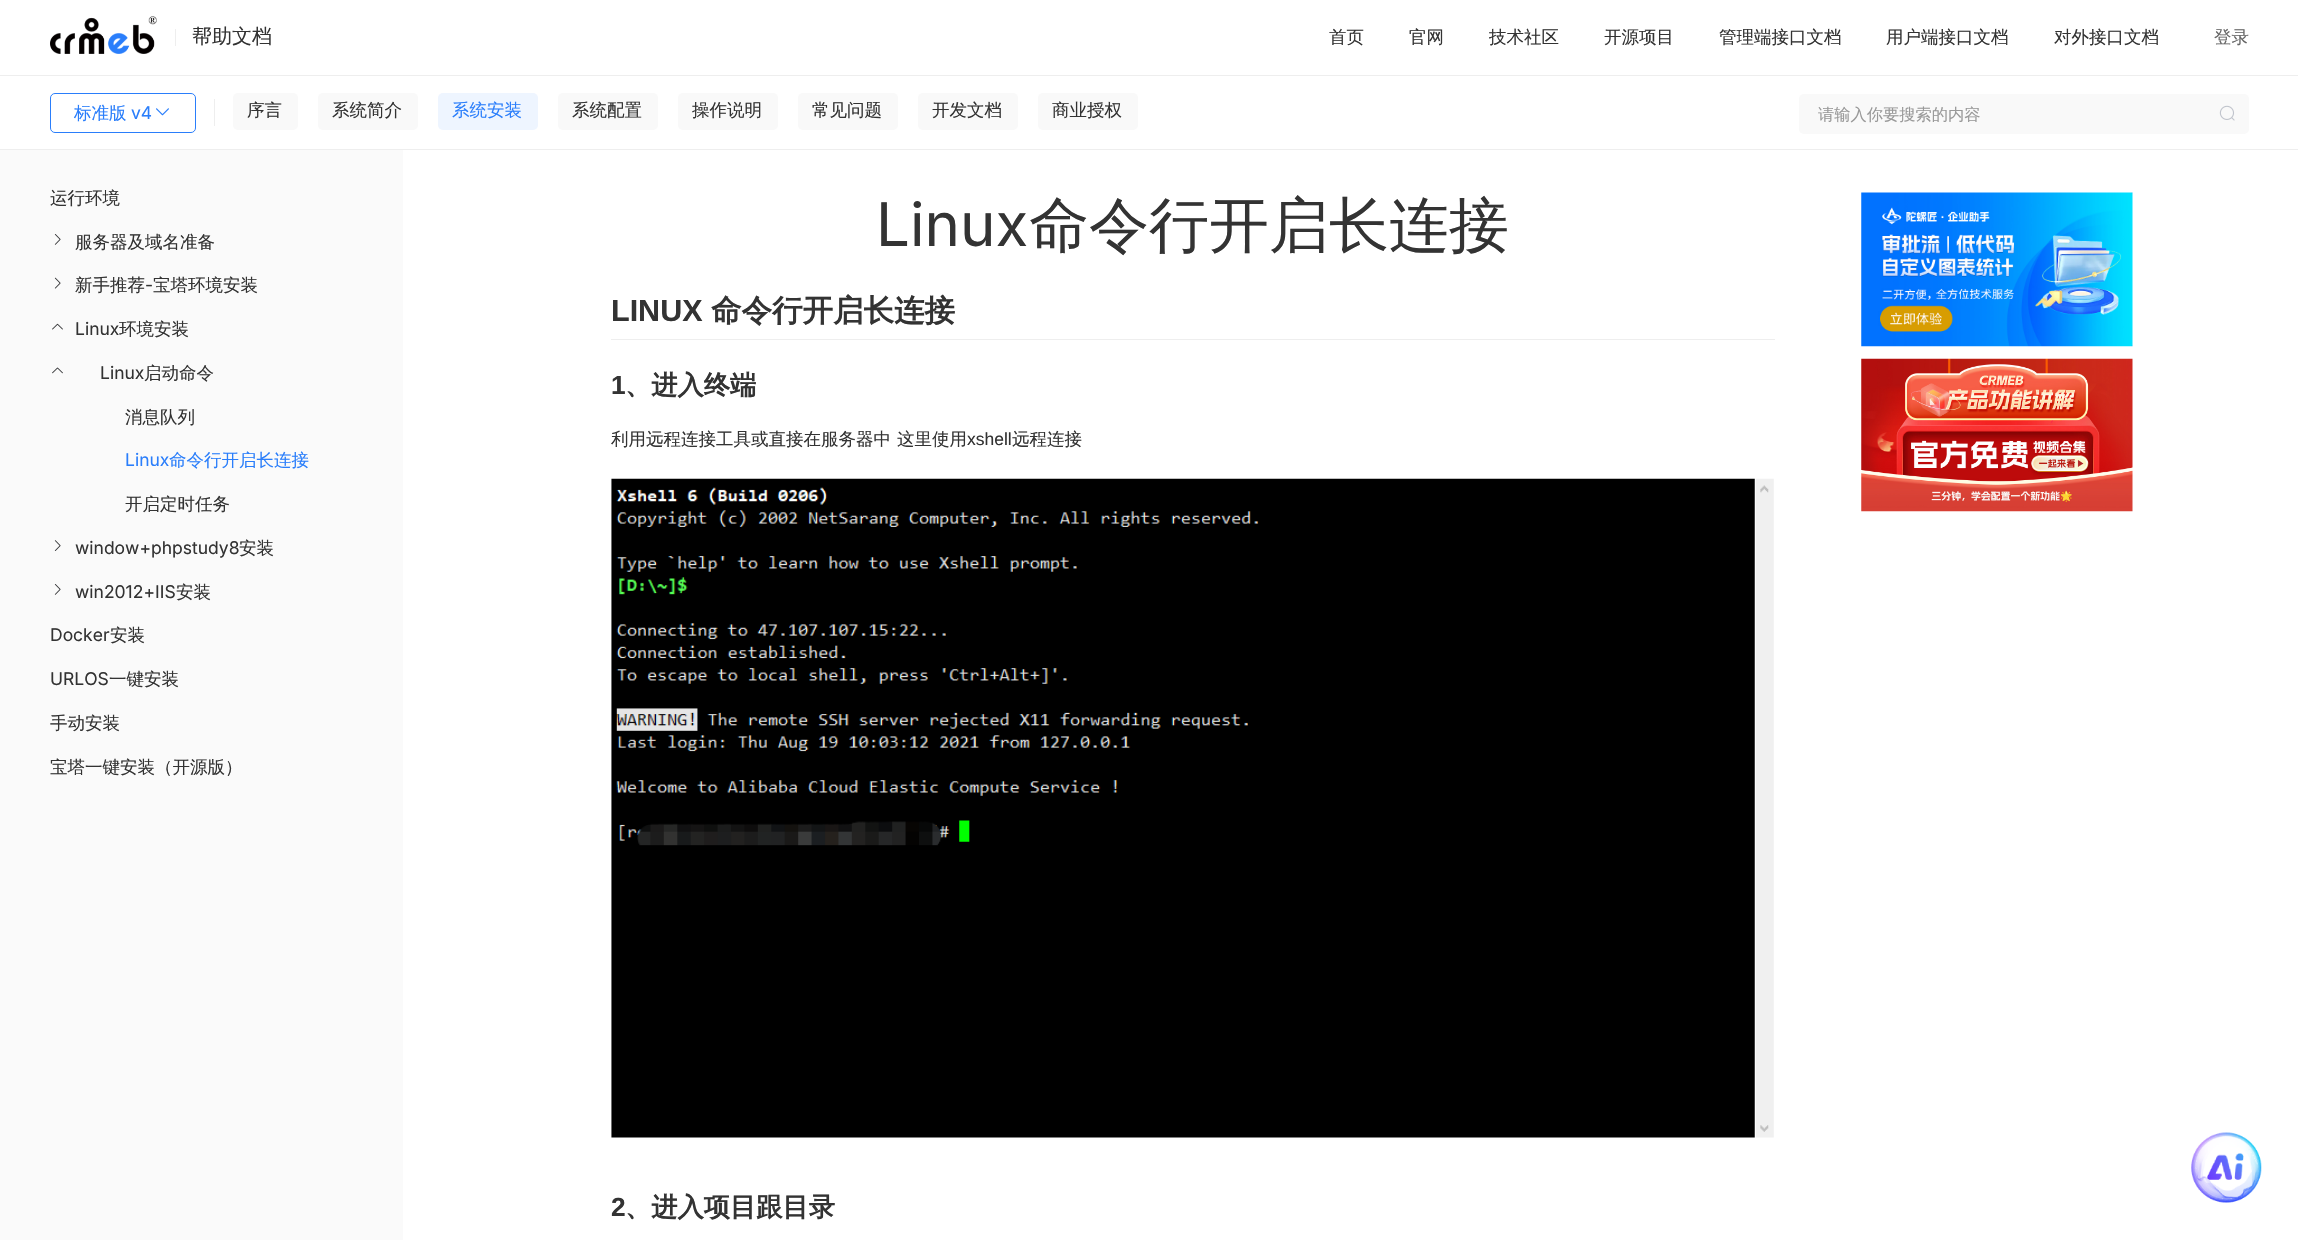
void draw(SkCanvas* canvas) {
	SkPaint fill;
	fill.setAntiAlias(true);
	auto makeFont = [&](const char* family, int weight, float size, bool italic = false) {
		SkFontStyle style(weight, SkFontStyle::kNormal_Width,
			italic ? SkFontStyle::kItalic_Slant : SkFontStyle::kUpright_Slant);
		SkFont result(fontMgr->matchFamilyStyle(family, style), size);
		result.setSubpixel(true);
		return result;
	};
	auto text = [&](const char* s, float x, float y, const SkFont& font) {
		canvas->drawString(s, x, y, font, fill);
	};
	auto box = [&](float l, float t, float r, float b) {
		canvas->drawRect(SkRect::MakeLTRB(l, t, r, b), fill);
	};
	auto roundBox = [&](float l, float t, float r, float b, float radius) {
		canvas->drawRoundRect(SkRect::MakeLTRB(l, t, r, b), radius, radius, fill);
	};
	auto picture = [&](const char* path, float l, float t, float r, float b) {
		auto image = SkImages::DeferredFromEncodedData(SkData::MakeFromFileName(path));
		canvas->drawImageRect(image, SkRect::MakeLTRB(l, t, r, b), SkSamplingOptions());
	};
	canvas->clear(0xFFFFFFFF);
	picture("image0.png", 50, 16, 157, 54);
	fill.setColor(0xFFEEEEEE);
	box(175, 29, 176, 46);
	box(0, 75, 2298, 76);
	box(0, 149, 2298, 150);
	fill.setStyle(SkPaint::kStroke_Style);
	fill.setStrokeWidth(1);
	fill.setColor(0xFF2A7EFB);
	canvas->drawRoundRect(SkRect::MakeLTRB(50.5f, 93.5f, 195.5f, 132.5f), 4.5f, 4.5f, fill);
	picture("image1.png", 156, 108, 169, 116);
	fill.setStyle(SkPaint::kFill_Style);
	fill.setColor(0xFFEEEEEE);
	box(214, 99, 215, 126);
	fill.setColor(0xFFF9F9F9);
	roundBox(233, 93, 298, 130, 5);
	roundBox(318, 93, 418, 130, 5);
	fill.setColor(0xFFEEF5FF);
	roundBox(438, 93, 538, 130, 5);
	fill.setColor(0xFFF9F9F9);
	roundBox(558, 93, 658, 130, 5);
	roundBox(678, 93, 778, 130, 5);
	roundBox(798, 93, 898, 130, 5);
	roundBox(918, 93, 1018, 130, 5);
	roundBox(1038, 93, 1138, 130, 5);
	roundBox(1799, 94, 2249, 134, 5);
	picture("image2.png", 2219, 105, 2235, 121);
	fill.setColor(0xFFFAFAFA);
	box(0, 150, 403, 1240);
	picture("image3.png", 54, 234, 61, 245);
	picture("image4.png", 54, 277, 61, 289);
	picture("image5.png", 52, 323, 63, 330);
	picture("image6.png", 52, 367, 63, 374);
	picture("image7.png", 54, 540, 61, 551);
	picture("image3.png", 54, 584, 61, 595);
	fill.setColor(0xFFEEEEEE);
	box(611, 339, 1775, 340);
	picture("image8.png", 611, 478, 1774, 1138);
	picture("image9.png", 1861, 192, 2133, 347);
	picture("image10.png", 1861, 358, 2133, 512);
	picture("image11.png", 2191, 1132, 2262, 1203);
	auto font1 = makeFont("WenQuanYi Zen Hei", 500, 20);
	fill.setColor(0xFF333333);
	text("帮助文档", 192, 43, font1);
	auto font2 = makeFont("WenQuanYi Zen Hei", 500, 17.5f);
	text("首页", 1329, 43, font2);
	text("官网", 1409, 43, font2);
	text("技术社区", 1489, 43, font2);
	text("开源项目", 1604, 43, font2);
	text("管理端接口文档", 1719, 43, font2);
	text("用户端接口文档", 1886, 43, font2);
	text("对外接口文档", 2054, 43, font2);
	fill.setColor(0xFF666666);
	text("登录", 2214, 43, font2);
	fill.setColor(0xFF2A7EFB);
	text("标准版", 74, 119, font2);
	auto font3 = makeFont("Inter", 400, 17.5f);
	text("v4", 131, 119, font3);
	fill.setColor(0xFF333333);
	text("序言", 247, 116, font2);
	text("系统简介", 332, 116, font2);
	fill.setColor(0xFF2A7EFB);
	text("系统安装", 452, 116, font2);
	fill.setColor(0xFF333333);
	text("系统配置", 572, 116, font2);
	text("操作说明", 692, 116, font2);
	text("常见问题", 812, 116, font2);
	text("开发文档", 932, 116, font2);
	text("商业授权", 1052, 116, font2);
	auto font4 = makeFont("WenQuanYi Zen Hei", 500, 16.25f);
	fill.setColor(0xFF999999);
	text("请输入你要搜索的内容", 1818, 120, font4);
	fill.setColor(0xFF333333);
	text("运行环境", 50, 204, font2);
	text("服务器及域名准备", 75, 248, font2);
	text("新手推荐", 75, 291, font2);
	text("-", 145, 291, font3);
	text("宝塔环境安装", 153, 291, font2);
	text("Linux", 75, 335, font3);
	text("环境安装", 119, 335, font2);
	text("Linux", 100, 379, font3);
	text("启动命令", 144, 379, font2);
	text("消息队列", 125, 423, font2);
	fill.setColor(0xFF2A7EFB);
	text("Linux", 125, 466, font3);
	text("命令行开启长连接", 169, 466, font2);
	fill.setColor(0xFF333333);
	text("开启定时任务", 125, 510, font2);
	text("window+phpstudy8", 75, 554, font3);
	text("安装", 239, 554, font2);
	text("win2012+IIS", 75, 598, font3);
	text("安装", 176, 598, font2);
	text("Docker", 50, 641, font3);
	text("安装", 110, 641, font2);
	text("URLOS", 50, 685, font3);
	text("一键安装", 109, 685, font2);
	text("手动安装", 50, 729, font2);
	text("宝塔一键安装（开源版）", 50, 773, font2);
	auto font5 = makeFont("Inter", 400, 60);
	text("Linux", 876, 246, font5);
	auto font6 = makeFont("WenQuanYi Zen Hei", 500, 60);
	text("命令行开启长连接", 1029, 246, font6);
	auto font7 = makeFont("Liberation Sans", 700, 30.5f);
	text("LINUX", 611, 321, font7);
	auto font8 = makeFont("WenQuanYi Zen Hei", 700, 30.5f);
	text("命令行开启长连接", 711, 321, font8);
	auto font9 = makeFont("Liberation Sans", 700, 26.25f);
	text("1", 611, 394, font9);
	auto font10 = makeFont("WenQuanYi Zen Hei", 700, 26.25f);
	text("、进入终端", 625, 394, font10);
	text("利用远程连接工具或直接在服务器中", 611, 445, font2);
	text("这里使用", 897, 445, font2);
	auto font11 = makeFont("Liberation Sans", 400, 17.5f);
	text("xshell", 967, 445, font11);
	text("远程连接", 1012, 445, font2);
	text("2", 611, 1216, font9);
	text("、进入项目跟目录", 625, 1216, font10);
}
